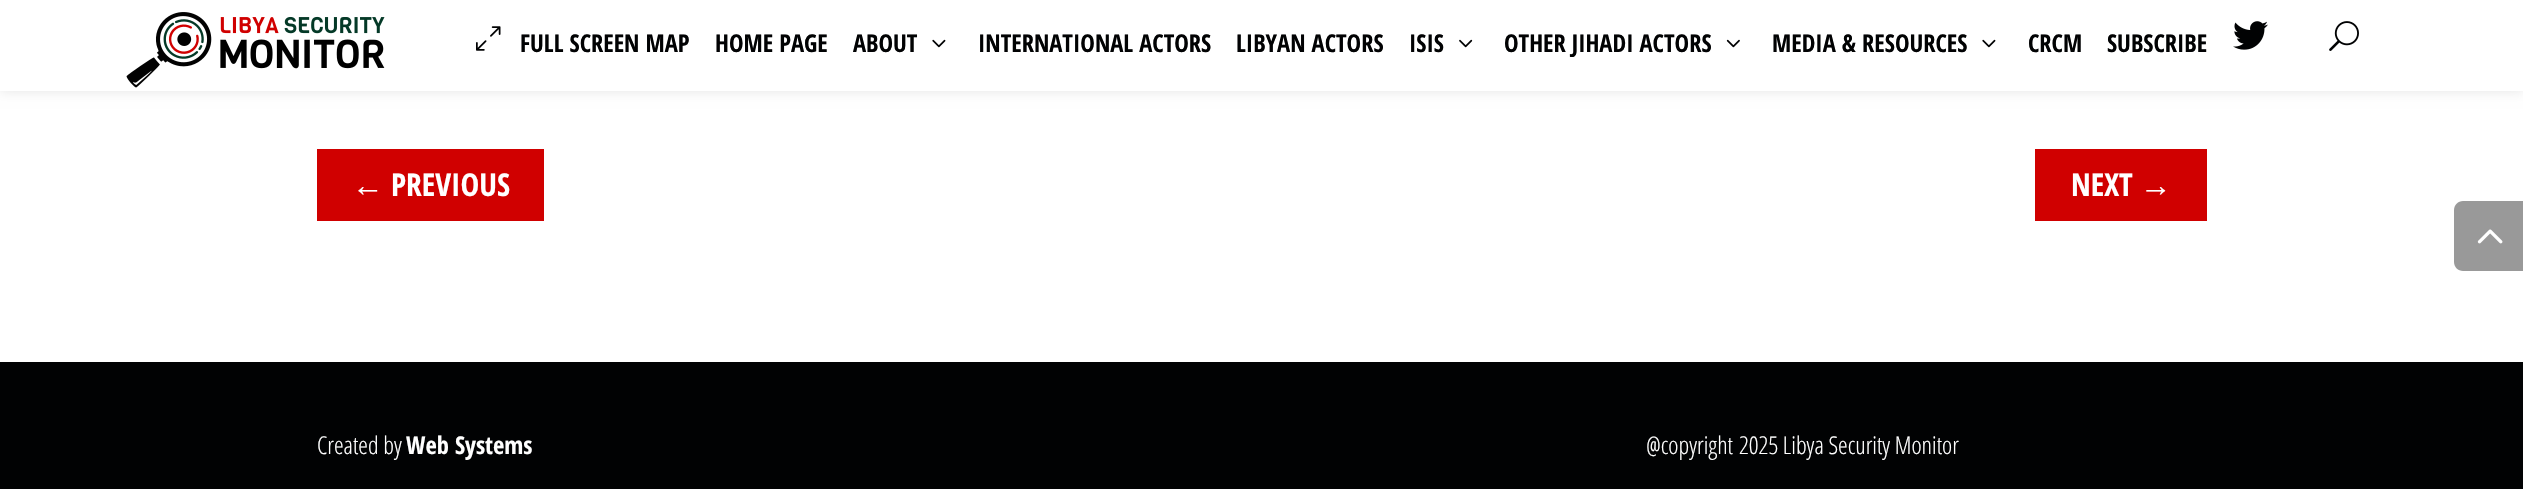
void draw(SkCanvas* canvas) {
	SkPaint fill;
	fill.setAntiAlias(true);
	auto makeFont = [&](const char* family, int weight, float size, bool italic = false) {
		SkFontStyle style(weight, SkFontStyle::kNormal_Width,
			italic ? SkFontStyle::kItalic_Slant : SkFontStyle::kUpright_Slant);
		SkFont result(fontMgr->matchFamilyStyle(family, style), size);
		result.setSubpixel(true);
		return result;
	};
	auto text = [&](const char* s, float x, float y, const SkFont& font) {
		canvas->drawString(s, x, y, font, fill);
	};
	auto box = [&](float l, float t, float r, float b) {
		canvas->drawRect(SkRect::MakeLTRB(l, t, r, b), fill);
	};
	auto picture = [&](const char* path, float l, float t, float r, float b) {
		auto image = SkImages::DeferredFromEncodedData(SkData::MakeFromFileName(path));
		canvas->drawImageRect(image, SkRect::MakeLTRB(l, t, r, b), SkSamplingOptions());
	};
	canvas->clear(0xFFFFFFFF);
	fill.setColor(0x1A000000);
	fill.setMaskFilter(SkMaskFilter::MakeBlur(kNormal_SkBlurStyle, 6));
	canvas->drawRect(SkRect::MakeLTRB(0, 0, 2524, 91), fill);
	fill.setMaskFilter(nullptr);
	fill.setColor(0xFFFFFFFF);
	box(0, 0, 2523, 91);
	picture("image0.png", 126, 12, 385, 88);
	picture("image1.png", 476, 26, 501, 51);
	picture("image2.png", 932, 39, 946, 48);
	picture("image3.png", 1459, 39, 1473, 48);
	picture("image4.png", 1726, 39, 1740, 48);
	picture("image2.png", 1982, 39, 1996, 48);
	picture("image5.png", 2233, 21, 2268, 50);
	picture("image6.png", 2329, 21, 2359, 51);
	fill.setColor(0xFFD00000);
	box(317, 149, 544, 221);
	box(2035, 149, 2207, 221);
	fill.setColor(0xFF999999);
	canvas->drawPath(SkPathBuilder().moveTo(2463, 201).lineTo(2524, 201).lineTo(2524, 271).lineTo(2463, 271).cubicTo(2458, 271, 2454, 267, 2454, 262).lineTo(2454, 210).cubicTo(2454, 205, 2458, 201, 2463, 201).close().detach(), fill);
	picture("image7.png", 2477, 229, 2503, 244);
	fill.setColor(0xFF010203);
	box(0, 362, 2523, 489);
	auto font1 = makeFont("Open Sans Condensed", 700, 24.5f);
	text("FULL SCREEN MAP", 520, 52, font1);
	text("HOME PAGE", 715, 52, font1);
	text("ABOUT", 853, 52, font1);
	text("INTERNATIONAL ACTORS", 978, 52, font1);
	text("LIBYAN ACTORS", 1236, 52, font1);
	text("ISIS", 1409, 52, font1);
	text("OTHER JIHADI ACTORS", 1504, 52, font1);
	text("MEDIA & RESOURCES", 1772, 52, font1);
	text("CRCM", 2028, 52, font1);
	text("SUBSCRIBE", 2107, 52, font1);
	auto font2 = makeFont("Liberation Sans", 700, 31.5f);
	fill.setColor(0xFFFFFFFF);
	text("←", 352, 196, font2);
	auto font3 = makeFont("Open Sans Condensed", 700, 31.5f);
	text("PREVIOUS", 391, 196, font3);
	text("NEXT", 2071, 196, font3);
	text("→", 2140, 196, font2);
	auto font4 = makeFont("Open Sans Condensed", 300, 24.5f);
	text("Created by", 317, 454, font4);
	text("Web Systems", 406, 454, font1);
	text("@copyright", 1646, 454, font4);
	text("2025 Libya Security Monitor", 1739, 454, font4);
}
